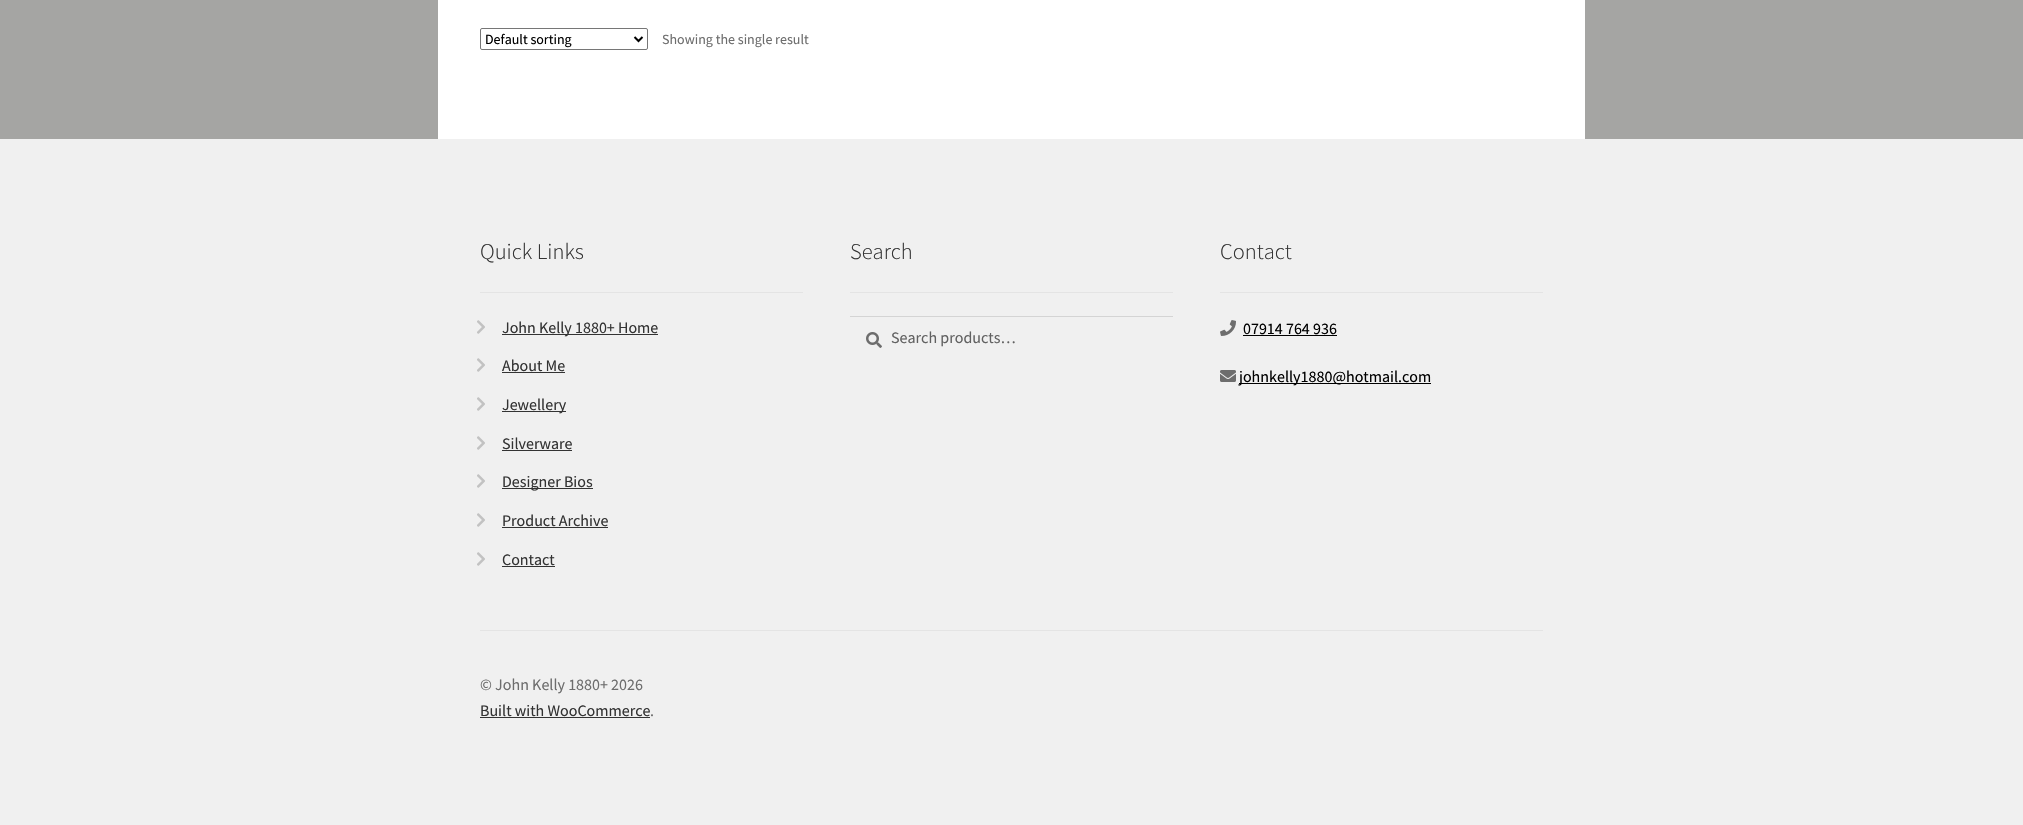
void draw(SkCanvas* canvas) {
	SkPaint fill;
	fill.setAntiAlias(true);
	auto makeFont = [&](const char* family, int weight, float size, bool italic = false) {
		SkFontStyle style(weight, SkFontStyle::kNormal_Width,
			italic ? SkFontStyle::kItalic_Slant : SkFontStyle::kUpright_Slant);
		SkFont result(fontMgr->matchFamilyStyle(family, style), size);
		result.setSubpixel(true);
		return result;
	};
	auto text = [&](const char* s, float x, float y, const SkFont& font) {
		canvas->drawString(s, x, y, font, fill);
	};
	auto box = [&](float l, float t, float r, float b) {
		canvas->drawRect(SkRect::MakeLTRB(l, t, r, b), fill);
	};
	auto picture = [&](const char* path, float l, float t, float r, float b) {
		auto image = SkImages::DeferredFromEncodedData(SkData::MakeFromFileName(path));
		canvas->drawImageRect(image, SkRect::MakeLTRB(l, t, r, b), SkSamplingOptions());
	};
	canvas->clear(0xFFA5A5A3);
	fill.setColor(0xFFFFFFFF);
	box(438, 0, 1585, 139);
	fill.setStyle(SkPaint::kStroke_Style);
	fill.setStrokeWidth(1);
	fill.setColor(0xFF767676);
	canvas->drawRoundRect(SkRect::MakeLTRB(480.5f, 28.5f, 647.5f, 49.5f), 1.5f, 1.5f, fill);
	fill.setStrokeWidth(2);
	fill.setColor(0xFF000000);
	canvas->drawPath(SkPathBuilder().moveTo(634.5f, 37).lineTo(638.5f, 41).lineTo(642.5f, 37).detach(), fill);
	fill.setStyle(SkPaint::kFill_Style);
	fill.setColor(0xFFF0F0F0);
	box(0, 139, 2023, 825);
	fill.setColor(0xFFE4E4E4);
	box(480, 630, 1543, 631);
	box(480, 292, 803, 293);
	picture("image0.png", 477, 320, 485, 334);
	fill.setColor(0xFF333333);
	box(502, 334, 658, 335);
	picture("image0.png", 477, 358, 485, 372);
	box(502, 372, 565, 373);
	picture("image0.png", 477, 397, 485, 411);
	box(502, 411, 566, 412);
	picture("image0.png", 477, 436, 485, 450);
	box(502, 450, 572, 451);
	picture("image0.png", 477, 474, 485, 488);
	box(502, 488, 593, 489);
	picture("image0.png", 477, 513, 485, 527);
	box(502, 527, 608, 528);
	picture("image0.png", 477, 552, 485, 566);
	box(502, 566, 555, 567);
	fill.setColor(0xFFE4E4E4);
	box(850, 292, 1173, 293);
	picture("image1.png", 866, 332, 882, 348);
	fill.setColor(0xFFD4D4D4);
	box(850, 316, 1173, 317);
	fill.setColor(0xFFE4E4E4);
	box(1220, 292, 1543, 293);
	picture("image2.png", 1220, 320, 1236, 336);
	fill.setColor(0xFF000000);
	box(1243, 335, 1337, 336);
	picture("image3.png", 1220, 370, 1236, 382);
	box(1239, 383, 1431, 384);
	fill.setColor(0xFF333333);
	box(480, 717, 650, 718);
	auto font1 = makeFont("Source Sans Pro", 400, 14);
	fill.setColor(0xFF000000);
	text("Default sorting", 485, 44, font1);
	fill.setColor(0xFF6D6D6D);
	text("Showing the single result", 662, 44, font1);
	auto font2 = makeFont("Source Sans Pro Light", 300, 22.5f);
	fill.setColor(0xFF333333);
	text("Quick Links", 480, 259, font2);
	auto font3 = makeFont("Source Sans Pro", 400, 16);
	text("John Kelly 1880+ Home", 502, 333, font3);
	text("About Me", 502, 371, font3);
	text("Jewellery", 502, 410, font3);
	text("Silverware", 502, 449, font3);
	text("Designer Bios", 502, 487, font3);
	text("Product Archive", 502, 526, font3);
	text("Contact", 502, 565, font3);
	text("Search", 850, 259, font2);
	fill.setColor(0xFF616161);
	text("Search products…", 891, 343, font3);
	fill.setColor(0xFF333333);
	text("Contact", 1220, 259, font2);
	fill.setColor(0xFF000000);
	text("07914 764 936", 1243, 334, font3);
	text("johnkelly1880@hotmail.com", 1239, 382, font3);
	fill.setColor(0xFF6D6D6D);
	text("© John Kelly 1880+ 2026", 480, 690, font3);
	fill.setColor(0xFF333333);
	text("Built with WooCommerce", 480, 716, font3);
	fill.setColor(0xFF6D6D6D);
	text(".", 650, 716, font3);
}
